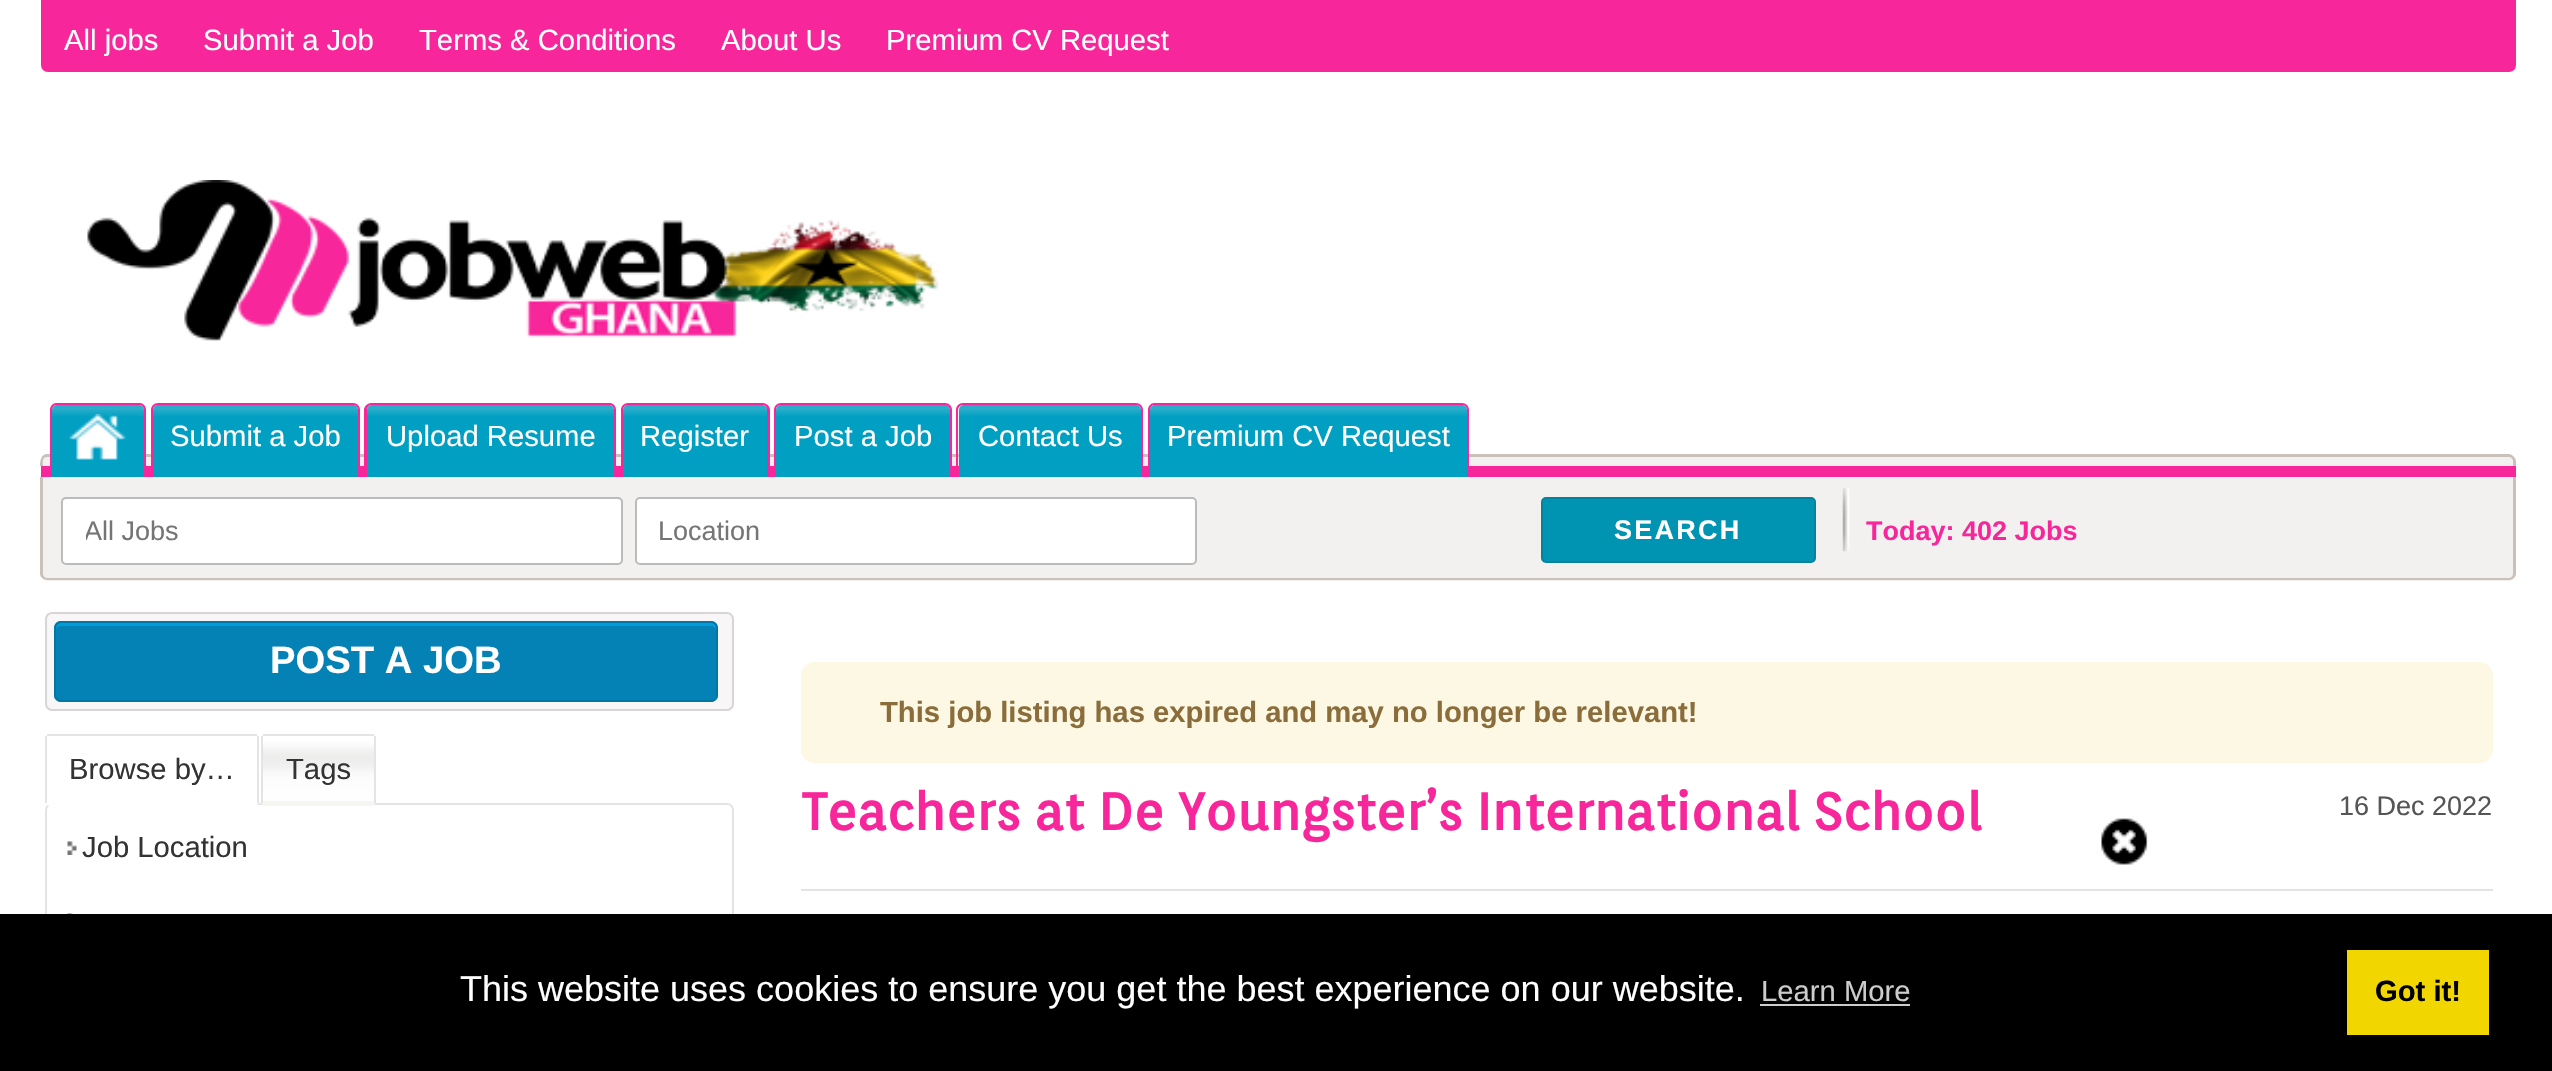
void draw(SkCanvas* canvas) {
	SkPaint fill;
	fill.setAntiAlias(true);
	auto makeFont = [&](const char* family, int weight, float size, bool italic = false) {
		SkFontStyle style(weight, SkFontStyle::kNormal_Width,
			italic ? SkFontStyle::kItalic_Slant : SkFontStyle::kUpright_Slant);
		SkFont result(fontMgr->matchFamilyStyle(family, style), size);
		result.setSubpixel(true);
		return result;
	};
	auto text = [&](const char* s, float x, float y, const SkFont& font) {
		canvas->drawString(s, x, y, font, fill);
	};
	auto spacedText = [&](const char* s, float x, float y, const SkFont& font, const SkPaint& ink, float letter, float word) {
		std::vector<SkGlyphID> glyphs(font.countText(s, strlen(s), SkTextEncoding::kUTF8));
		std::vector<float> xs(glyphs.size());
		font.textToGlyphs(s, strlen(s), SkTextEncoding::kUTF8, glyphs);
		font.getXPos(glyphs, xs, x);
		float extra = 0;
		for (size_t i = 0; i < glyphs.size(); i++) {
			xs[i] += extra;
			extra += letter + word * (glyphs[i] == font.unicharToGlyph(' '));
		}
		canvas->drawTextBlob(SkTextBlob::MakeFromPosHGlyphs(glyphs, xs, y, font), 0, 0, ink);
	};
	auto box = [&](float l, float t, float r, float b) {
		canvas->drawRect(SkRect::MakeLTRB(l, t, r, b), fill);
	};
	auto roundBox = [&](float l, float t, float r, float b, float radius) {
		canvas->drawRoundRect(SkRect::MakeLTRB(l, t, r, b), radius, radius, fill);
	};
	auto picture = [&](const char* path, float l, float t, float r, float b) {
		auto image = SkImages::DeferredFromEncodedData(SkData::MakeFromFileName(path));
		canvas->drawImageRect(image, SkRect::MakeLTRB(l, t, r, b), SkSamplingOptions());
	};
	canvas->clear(0xFFFFFFFF);
	fill.setColor(0xFFF8269B);
	canvas->drawPath(SkPathBuilder().moveTo(42, 1).lineTo(2515, 1).lineTo(2515, 65).cubicTo(2515, 68.5f, 2512.5f, 71, 2509, 71).lineTo(48, 71).cubicTo(44.5f, 71, 42, 68.5f, 42, 65).close().detach(), fill);
	fill.setStyle(SkPaint::kStroke_Style);
	fill.setStrokeWidth(2);
	canvas->drawPath(SkPathBuilder().moveTo(42, 1).lineTo(2515, 1).lineTo(2515, 65).cubicTo(2515, 68.5f, 2512.5f, 71, 2509, 71).lineTo(48, 71).cubicTo(44.5f, 71, 42, 68.5f, 42, 65).close().detach(), fill);
	picture("image0.png", 87, 180, 939, 341);
	fill.setStyle(SkPaint::kFill_Style);
	box(41, 466, 2516, 477);
	fill.setColor(0xFFF2F1EF);
	canvas->drawPath(SkPathBuilder().moveTo(48, 455).lineTo(2509, 455).cubicTo(2513, 455, 2516, 458, 2516, 462).lineTo(2516, 466).lineTo(41, 466).lineTo(41, 462).cubicTo(41, 458, 44, 455, 48, 455).close().detach(), fill);
	fill.setColor(0xFFCAC2BA);
	canvas->drawPath(SkPathBuilder(SkPathFillType::kEvenOdd).moveTo(47, 454).lineTo(2509, 454).cubicTo(2512, 454, 2516, 458, 2516, 461).lineTo(2516, 466).lineTo(40, 466).cubicTo(40, 461, 41, 454, 47, 454).close().moveTo(47, 457).lineTo(2509, 457).cubicTo(2511, 457, 2513, 459, 2513, 461).lineTo(2513, 466).lineTo(43, 466).cubicTo(43, 462, 42, 457, 47, 457).close().detach(), fill);
	fill.setColor(0xFF019FC2);
	canvas->drawPath(SkPathBuilder().moveTo(57, 405).lineTo(139, 405).cubicTo(142, 405, 144, 407, 144, 410).lineTo(144, 477).lineTo(52, 477).lineTo(52, 410).cubicTo(52, 407, 54, 405, 57, 405).close().detach(), fill);
	picture("image1.png", 52, 405, 144, 416);
	fill.setColor(0xFFF8269B);
	canvas->drawPath(SkPathBuilder(SkPathFillType::kEvenOdd).moveTo(56, 403).lineTo(140, 403).cubicTo(143, 403, 146, 406, 146, 410).lineTo(146, 477).lineTo(50, 477).lineTo(50, 410).cubicTo(50, 406, 53, 403, 56, 403).close().moveTo(56, 405).lineTo(140, 405).cubicTo(142, 405, 144, 407, 144, 410).lineTo(144, 477).lineTo(52, 477).lineTo(52, 410).cubicTo(52, 407, 54, 405, 56, 405).close().detach(), fill);
	picture("image2.png", 69, 414, 126, 460);
	fill.setColor(0xFF019FC2);
	canvas->drawPath(SkPathBuilder().moveTo(158, 405).lineTo(353, 405).cubicTo(356, 405, 358, 407, 358, 410).lineTo(358, 477).lineTo(153, 477).lineTo(153, 410).cubicTo(153, 407, 155, 405, 158, 405).close().detach(), fill);
	picture("image3.png", 153, 405, 358, 416);
	fill.setColor(0xFFF8269B);
	canvas->drawPath(SkPathBuilder(SkPathFillType::kEvenOdd).moveTo(158, 403).lineTo(353, 403).cubicTo(357, 403, 360, 406, 360, 410).lineTo(360, 477).lineTo(151, 477).lineTo(151, 410).cubicTo(151, 406, 154, 403, 158, 403).close().moveTo(158, 405).lineTo(353, 405).cubicTo(356, 405, 358, 407, 358, 410).lineTo(358, 477).lineTo(153, 477).lineTo(153, 410).cubicTo(153, 407, 155, 405, 158, 405).close().detach(), fill);
	fill.setColor(0xFF019FC2);
	canvas->drawPath(SkPathBuilder().moveTo(372, 405).lineTo(609, 405).cubicTo(612, 405, 614, 407, 614, 410).lineTo(614, 477).lineTo(367, 477).lineTo(367, 410).cubicTo(367, 407, 369, 405, 372, 405).close().detach(), fill);
	picture("image4.png", 367, 405, 614, 416);
	fill.setColor(0xFFF8269B);
	canvas->drawPath(SkPathBuilder(SkPathFillType::kEvenOdd).moveTo(371, 403).lineTo(610, 403).cubicTo(613, 403, 616, 406, 616, 410).lineTo(616, 477).lineTo(364, 477).lineTo(364, 410).cubicTo(364, 406, 368, 403, 371, 403).close().moveTo(371, 405).lineTo(610, 405).cubicTo(612, 405, 614, 407, 614, 410).lineTo(614, 477).lineTo(367, 477).lineTo(367, 410).cubicTo(367, 407, 369, 405, 371, 405).close().detach(), fill);
	fill.setColor(0xFF019FC2);
	canvas->drawPath(SkPathBuilder().moveTo(628, 405).lineTo(762, 405).cubicTo(765, 405, 767, 407, 767, 410).lineTo(767, 477).lineTo(623, 477).lineTo(623, 410).cubicTo(623, 407, 625, 405, 628, 405).close().detach(), fill);
	picture("image5.png", 623, 405, 767, 416);
	fill.setColor(0xFFF8269B);
	canvas->drawPath(SkPathBuilder(SkPathFillType::kEvenOdd).moveTo(628, 403).lineTo(763, 403).cubicTo(766, 403, 770, 406, 770, 410).lineTo(770, 477).lineTo(621, 477).lineTo(621, 410).cubicTo(621, 406, 624, 403, 628, 403).close().moveTo(628, 405).lineTo(763, 405).cubicTo(765, 405, 767, 407, 767, 410).lineTo(767, 477).lineTo(623, 477).lineTo(623, 410).cubicTo(623, 407, 625, 405, 628, 405).close().detach(), fill);
	fill.setColor(0xFF019FC2);
	canvas->drawPath(SkPathBuilder().moveTo(781, 405).lineTo(945, 405).cubicTo(948, 405, 950, 407, 950, 410).lineTo(950, 477).lineTo(776, 477).lineTo(776, 410).cubicTo(776, 407, 778, 405, 781, 405).close().detach(), fill);
	picture("image6.png", 776, 405, 950, 416);
	fill.setColor(0xFFF8269B);
	canvas->drawPath(SkPathBuilder(SkPathFillType::kEvenOdd).moveTo(781, 403).lineTo(945, 403).cubicTo(949, 403, 952, 406, 952, 410).lineTo(952, 477).lineTo(774, 477).lineTo(774, 410).cubicTo(774, 406, 777, 403, 781, 403).close().moveTo(781, 405).lineTo(945, 405).cubicTo(947, 405, 950, 407, 950, 410).lineTo(950, 477).lineTo(776, 477).lineTo(776, 410).cubicTo(776, 407, 778, 405, 781, 405).close().detach(), fill);
	fill.setColor(0xFF019FC2);
	canvas->drawPath(SkPathBuilder().moveTo(964, 405).lineTo(1136, 405).cubicTo(1139, 405, 1141, 407, 1141, 410).lineTo(1141, 477).lineTo(959, 477).lineTo(959, 410).cubicTo(959, 407, 961, 405, 964, 405).close().detach(), fill);
	picture("image7.png", 959, 405, 1141, 416);
	fill.setColor(0xFFF8269B);
	canvas->drawPath(SkPathBuilder(SkPathFillType::kEvenOdd).moveTo(963, 403).lineTo(1136, 403).cubicTo(1140, 403, 1143, 406, 1143, 410).lineTo(1143, 477).lineTo(956, 477).lineTo(956, 410).cubicTo(956, 406, 959, 403, 963, 403).close().moveTo(963, 405).lineTo(1136, 405).cubicTo(1139, 405, 1141, 407, 1141, 410).lineTo(1141, 477).lineTo(958, 477).lineTo(958, 410).cubicTo(958, 407, 961, 405, 963, 405).close().detach(), fill);
	fill.setColor(0xFF019FC2);
	canvas->drawPath(SkPathBuilder().moveTo(1155, 405).lineTo(1462, 405).cubicTo(1465, 405, 1467, 407, 1467, 410).lineTo(1467, 477).lineTo(1150, 477).lineTo(1150, 410).cubicTo(1150, 407, 1152, 405, 1155, 405).close().detach(), fill);
	picture("image8.png", 1150, 405, 1467, 416);
	fill.setColor(0xFFF8269B);
	canvas->drawPath(SkPathBuilder(SkPathFillType::kEvenOdd).moveTo(1154, 403).lineTo(1462, 403).cubicTo(1466, 403, 1469, 406, 1469, 410).lineTo(1469, 477).lineTo(1148, 477).lineTo(1148, 410).cubicTo(1148, 406, 1151, 403, 1154, 403).close().moveTo(1154, 405).lineTo(1462, 405).cubicTo(1465, 405, 1467, 407, 1467, 410).lineTo(1467, 477).lineTo(1150, 477).lineTo(1150, 410).cubicTo(1150, 407, 1152, 405, 1154, 405).close().detach(), fill);
	fill.setColor(0xFFF2F1EF);
	canvas->drawPath(SkPathBuilder().moveTo(41, 477).lineTo(2516, 477).lineTo(2516, 574).cubicTo(2516, 578, 2513, 581, 2509, 581).lineTo(48, 581).cubicTo(44, 581, 41, 578, 41, 574).close().detach(), fill);
	fill.setColor(0xFFCAC2BA);
	canvas->drawPath(SkPathBuilder(SkPathFillType::kEvenOdd).moveTo(40, 477).lineTo(2516, 477).lineTo(2516, 574).cubicTo(2516, 577, 2512, 580, 2509, 580).lineTo(47, 580).cubicTo(44, 580, 40, 577, 40, 574).close().moveTo(43, 477).lineTo(2513, 477).lineTo(2513, 574).cubicTo(2513, 576, 2511, 578, 2509, 578).lineTo(47, 578).cubicTo(45, 578, 43, 576, 43, 574).close().detach(), fill);
	fill.setColor(0xFFFFFFFF);
	canvas->drawRoundRect(SkRect::MakeLTRB(62, 498, 622, 564), 4, 4, fill);
	fill.setStyle(SkPaint::kStroke_Style);
	fill.setColor(0xFFBBBBBB);
	canvas->drawRoundRect(SkRect::MakeLTRB(62, 498, 622, 564), 4, 4, fill);
	fill.setStyle(SkPaint::kFill_Style);
	fill.setColor(0xFFFFFFFF);
	canvas->drawRoundRect(SkRect::MakeLTRB(636, 498, 1196, 564), 4, 4, fill);
	fill.setStyle(SkPaint::kStroke_Style);
	fill.setColor(0xFFBBBBBB);
	canvas->drawRoundRect(SkRect::MakeLTRB(636, 498, 1196, 564), 4, 4, fill);
	fill.setStyle(SkPaint::kFill_Style);
	fill.setColor(0xFF0193B2);
	canvas->drawRoundRect(SkRect::MakeLTRB(1542, 498, 1815, 562), 4, 4, fill);
	fill.setStyle(SkPaint::kStroke_Style);
	fill.setColor(0xFF01829E);
	canvas->drawRoundRect(SkRect::MakeLTRB(1542, 498, 1815, 562), 4, 4, fill);
	picture("image9.png", 1842, 488, 1850, 552);
	fill.setStyle(SkPaint::kFill_Style);
	fill.setColor(0xFFF8F6F6);
	canvas->drawRoundRect(SkRect::MakeLTRB(46, 613, 733, 710), 6, 6, fill);
	fill.setStyle(SkPaint::kStroke_Style);
	fill.setColor(0xFFD7D5D5);
	canvas->drawRoundRect(SkRect::MakeLTRB(46, 613, 733, 710), 6, 6, fill);
	fill.setStyle(SkPaint::kFill_Style);
	fill.setColor(0xFF0482B6);
	roundBox(54, 621, 718, 702, 7);
	fill.setColor(0xFF039CDB);
	canvas->drawPath(SkPathBuilder().moveTo(61, 626).lineTo(711, 626).cubicTo(713, 626, 716, 628, 716, 630).lineTo(716, 628).cubicTo(716, 625, 714, 623, 711, 623).lineTo(61, 623).cubicTo(58, 623, 56, 625, 56, 628).lineTo(56, 630).cubicTo(56, 628, 58, 626, 61, 626).close().detach(), fill);
	fill.setStyle(SkPaint::kStroke_Style);
	fill.setColor(0xFF0276A7);
	canvas->drawRoundRect(SkRect::MakeLTRB(55, 622, 717, 701), 6, 6, fill);
	fill.setColor(0xFFE4E4E7);
	canvas->drawRoundRect(SkRect::MakeLTRB(46, 804, 733, 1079), 6, 6, fill);
	fill.setStyle(SkPaint::kFill_Style);
	fill.setColor(0xFFFFFFFF);
	roundBox(45, 734, 259, 806, 5);
	fill.setColor(0xFFE4E4E7);
	box(47, 734, 257, 736);
	box(257, 736, 259, 803);
	box(45, 736, 47, 803);
	fill.setColor(0xFFF5F5F2);
	roundBox(261, 734, 376, 806, 5);
	picture("image10.png", 263, 736, 374, 801);
	fill.setColor(0xFFE4E4E7);
	box(263, 734, 374, 736);
	box(374, 736, 376, 803);
	box(261, 736, 263, 803);
	picture("image11.png", 67, 841, 77, 855);
	picture("image12.png", 67, 913, 73, 914);
	fill.setColor(0xFFFCF8E3);
	roundBox(801, 662, 2493, 763, 14);
	fill.setColor(0xFFE4E4E4);
	box(801, 889, 2493, 891);
	picture("image13.png", 2101, 818, 2148, 865);
	fill.setColor(0xFF000000);
	box(0, 914, 2552, 1071);
	fill.setColor(0xFFCCCCCC);
	box(1760, 1004, 1910, 1006);
	fill.setColor(0xFFF1D600);
	box(2347, 950, 2489, 1035);
	auto font1 = makeFont("Liberation Sans", 400, 29.25f);
	fill.setColor(0xFFFFFFFF);
	text("All jobs", 64, 50, font1);
	text("Submit a Job", 203, 50, font1);
	text("Terms & Conditions", 419, 50, font1);
	text("About Us", 721, 50, font1);
	text("Premium CV Request", 886, 50, font1);
	text("Submit a Job", 170, 446, font1);
	text("Upload Resume", 386, 446, font1);
	text("Register", 640, 446, font1);
	text("Post a Job", 794, 446, font1);
	text("Contact Us", 978, 446, font1);
	text("Premium CV Request", 1167, 446, font1);
	canvas->save();
	canvas->clipRect(SkRect::MakeLTRB(86, 515, 599, 547));
	auto font2 = makeFont("Liberation Sans", 400, 27);
	fill.setColor(0xFF757575);
	text("All Jobs", 84, 540, font2);
	canvas->restore();
	text("Location", 658, 540, font2);
	auto font3 = makeFont("Liberation Sans", 700, 27);
	fill.setColor(0xFFFFFFFF);
	spacedText("SEARCH", 1614, 539, font3, fill, 2.25f, 0);
	fill.setColor(0xFFF8269B);
	text("Today: 402 Jobs", 1866, 540, font3);
	auto font4 = makeFont("Liberation Sans", 700, 38.25f);
	fill.setColor(0xFFFFFFFF);
	text("POST A JOB", 270, 673, font4);
	fill.setColor(0xFF333333);
	text("Browse by…", 69, 779, font1);
	text("Tags", 286, 779, font1);
	text("Job Location", 82, 857, font1);
	auto font5 = makeFont("Liberation Sans", 700, 29.25f);
	fill.setColor(0xFF8A6D3B);
	text("This job listing has expired and may no longer be relevant!", 880, 722, font5);
	auto font6 = makeFont("Orienta", 700, 51.75f);
	fill.setColor(0xFFF8269B);
	text("Teachers at De Youngster’s International School", 802, 830, font6);
	fill.setColor(0xFF555555);
	text("16 Dec 2022", 2339, 815, font2);
	auto font7 = makeFont("Liberation Sans", 400, 36);
	fill.setColor(0xFFFFFFFF);
	text("This website uses cookies to ensure you get the best experience on our website.", 460, 1001, font7);
	fill.setColor(0xFFCCCCCC);
	text("Learn More", 1761, 1001, font1);
	fill.setColor(0xFF000000);
	text("Got it!", 2375, 1001, font5);
}
